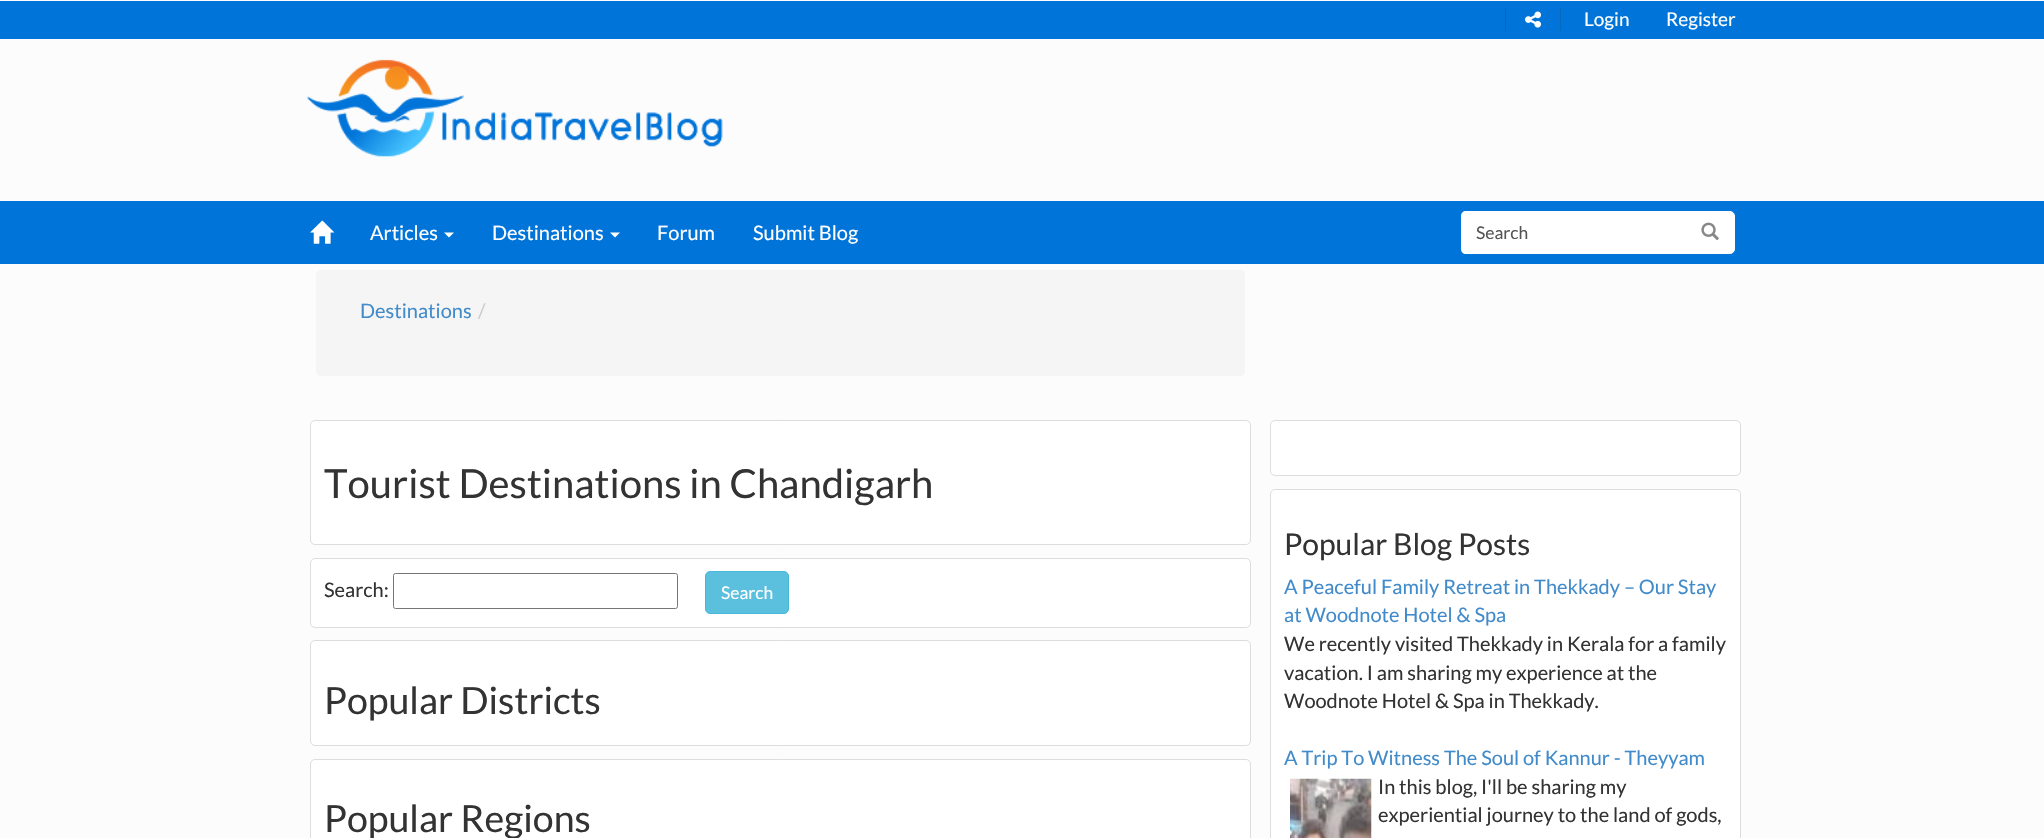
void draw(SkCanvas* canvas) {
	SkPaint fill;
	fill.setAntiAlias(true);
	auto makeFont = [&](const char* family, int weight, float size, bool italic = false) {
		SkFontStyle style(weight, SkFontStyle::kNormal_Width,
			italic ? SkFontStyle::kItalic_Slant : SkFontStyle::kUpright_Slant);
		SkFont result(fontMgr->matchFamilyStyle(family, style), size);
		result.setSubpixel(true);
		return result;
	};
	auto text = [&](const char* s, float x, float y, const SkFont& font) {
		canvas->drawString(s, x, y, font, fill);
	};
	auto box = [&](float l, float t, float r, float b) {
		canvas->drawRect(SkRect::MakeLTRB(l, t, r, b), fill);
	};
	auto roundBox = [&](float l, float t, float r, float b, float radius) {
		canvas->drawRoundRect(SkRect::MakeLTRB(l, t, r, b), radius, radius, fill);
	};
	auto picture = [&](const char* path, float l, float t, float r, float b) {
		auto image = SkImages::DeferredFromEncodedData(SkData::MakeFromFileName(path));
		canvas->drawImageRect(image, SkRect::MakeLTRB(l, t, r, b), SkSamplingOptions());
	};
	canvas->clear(0xFFFCFCFC);
	fill.setColor(0xFF0074D9);
	box(0, 1, 2044, 39);
	fill.setColor(0xFF0668BD);
	box(1560, 8, 1561, 31);
	box(1505, 8, 1506, 31);
	picture("image0.png", 1525, 11, 1542, 28);
	picture("image1.png", 307, 59, 723, 157);
	fill.setColor(0xFF0074D9);
	box(0, 201, 2044, 264);
	picture("image2.png", 310, 220, 335, 244);
	fill.setColor(0xFFFFFFFF);
	canvas->drawPath(SkPathBuilder().moveTo(444, 232.5f).lineTo(454, 232.5f).lineTo(449, 237.5f).close().detach(), fill);
	canvas->drawPath(SkPathBuilder().moveTo(610, 232.5f).lineTo(620, 232.5f).lineTo(615, 237.5f).close().detach(), fill);
	canvas->drawPath(SkPathBuilder().moveTo(1685.5f, 211.5f).lineTo(1730, 211.5f).cubicTo(1732.5f, 211.5f, 1734.5f, 213.5f, 1734.5f, 216).lineTo(1734.5f, 249).cubicTo(1734.5f, 251.5f, 1732.5f, 253.5f, 1730, 253.5f).lineTo(1685.5f, 253.5f).close().detach(), fill);
	fill.setStyle(SkPaint::kStroke_Style);
	fill.setStrokeWidth(1);
	canvas->drawPath(SkPathBuilder().moveTo(1685.5f, 211.5f).lineTo(1730, 211.5f).cubicTo(1732.5f, 211.5f, 1734.5f, 213.5f, 1734.5f, 216).lineTo(1734.5f, 249).cubicTo(1734.5f, 251.5f, 1732.5f, 253.5f, 1730, 253.5f).lineTo(1685.5f, 253.5f).close().detach(), fill);
	fill.setStyle(SkPaint::kFill_Style);
	canvas->drawPath(SkPathBuilder().moveTo(1466, 211).lineTo(1686, 211).lineTo(1686, 254).lineTo(1466, 254).cubicTo(1463, 254, 1461, 252, 1461, 249).lineTo(1461, 216).cubicTo(1461, 213, 1463, 211, 1466, 211).close().detach(), fill);
	picture("image3.png", 1701, 222, 1719, 240);
	fill.setColor(0xFFF5F5F5);
	roundBox(316, 270, 1245, 376, 5);
	fill.setColor(0xFFFFFFFF);
	canvas->drawRoundRect(SkRect::MakeLTRB(310.5f, 420.5f, 1250.5f, 544.5f), 4.5f, 4.5f, fill);
	fill.setStyle(SkPaint::kStroke_Style);
	fill.setColor(0xFFDDDDDD);
	canvas->drawRoundRect(SkRect::MakeLTRB(310.5f, 420.5f, 1250.5f, 544.5f), 4.5f, 4.5f, fill);
	fill.setStyle(SkPaint::kFill_Style);
	fill.setColor(0xFFFFFFFF);
	canvas->drawRoundRect(SkRect::MakeLTRB(310.5f, 558.5f, 1250.5f, 627.5f), 4.5f, 4.5f, fill);
	fill.setStyle(SkPaint::kStroke_Style);
	fill.setColor(0xFFDDDDDD);
	canvas->drawRoundRect(SkRect::MakeLTRB(310.5f, 558.5f, 1250.5f, 627.5f), 4.5f, 4.5f, fill);
	fill.setColor(0xFF767676);
	canvas->drawRoundRect(SkRect::MakeLTRB(393.5f, 573.5f, 677.5f, 608.5f), 2, 2, fill);
	fill.setStyle(SkPaint::kFill_Style);
	fill.setColor(0xFF5BC0DE);
	canvas->drawRoundRect(SkRect::MakeLTRB(705.5f, 571.5f, 788.5f, 613.5f), 4.5f, 4.5f, fill);
	fill.setStyle(SkPaint::kStroke_Style);
	fill.setColor(0xFF46B8DA);
	canvas->drawRoundRect(SkRect::MakeLTRB(705.5f, 571.5f, 788.5f, 613.5f), 4.5f, 4.5f, fill);
	fill.setStyle(SkPaint::kFill_Style);
	fill.setColor(0xFFFFFFFF);
	canvas->drawRoundRect(SkRect::MakeLTRB(310.5f, 640.5f, 1250.5f, 745.5f), 4.5f, 4.5f, fill);
	fill.setStyle(SkPaint::kStroke_Style);
	fill.setColor(0xFFDDDDDD);
	canvas->drawRoundRect(SkRect::MakeLTRB(310.5f, 640.5f, 1250.5f, 745.5f), 4.5f, 4.5f, fill);
	fill.setStyle(SkPaint::kFill_Style);
	fill.setColor(0xFFFFFFFF);
	canvas->drawRoundRect(SkRect::MakeLTRB(310.5f, 759.5f, 1250.5f, 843.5f), 4.5f, 4.5f, fill);
	fill.setStyle(SkPaint::kStroke_Style);
	fill.setColor(0xFFDDDDDD);
	canvas->drawRoundRect(SkRect::MakeLTRB(310.5f, 759.5f, 1250.5f, 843.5f), 4.5f, 4.5f, fill);
	fill.setStyle(SkPaint::kFill_Style);
	fill.setColor(0xFFFFFFFF);
	canvas->drawRoundRect(SkRect::MakeLTRB(1270.5f, 420.5f, 1740.5f, 475.5f), 4.5f, 4.5f, fill);
	fill.setStyle(SkPaint::kStroke_Style);
	fill.setColor(0xFFDDDDDD);
	canvas->drawRoundRect(SkRect::MakeLTRB(1270.5f, 420.5f, 1740.5f, 475.5f), 4.5f, 4.5f, fill);
	fill.setStyle(SkPaint::kFill_Style);
	fill.setColor(0xFFFFFFFF);
	canvas->drawRoundRect(SkRect::MakeLTRB(1270.5f, 489.5f, 1740.5f, 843.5f), 4.5f, 4.5f, fill);
	fill.setStyle(SkPaint::kStroke_Style);
	fill.setColor(0xFFDDDDDD);
	canvas->drawRoundRect(SkRect::MakeLTRB(1270.5f, 489.5f, 1740.5f, 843.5f), 4.5f, 4.5f, fill);
	picture("image4.png", 1290, 778, 1372, 838);
	auto font1 = makeFont("Lato", 400, 19);
	fill.setStyle(SkPaint::kFill_Style);
	fill.setColor(0xFFFFFFFF);
	text("Login", 1584, 26, font1);
	text("Register", 1666, 26, font1);
	auto font2 = makeFont("Lato", 400, 20);
	text("Articles", 370, 240, font2);
	text("Destinations", 492, 240, font2);
	text("Forum", 657, 240, font2);
	text("Submit Blog", 753, 240, font2);
	auto font3 = makeFont("Lato", 400, 17.5f);
	fill.setColor(0xFF555555);
	text("Search", 1476, 239, font3);
	fill.setColor(0xFF428BCA);
	text("Destinations", 360, 318, font2);
	fill.setColor(0xFFCCCCCC);
	text("/", 478, 318, font2);
	auto font4 = makeFont("Lato", 400, 40);
	fill.setColor(0xFF333333);
	text("Tourist Destinations in Chandigarh", 324, 498, font4);
	text("Search:", 324, 597, font2);
	fill.setColor(0xFFFFFFFF);
	text("Search", 721, 599, font3);
	auto font5 = makeFont("Lato", 400, 37.5f);
	fill.setColor(0xFF333333);
	text("Popular Districts", 324, 714, font5);
	text("Popular Regions", 324, 832, font5);
	auto font6 = makeFont("Lato", 400, 30);
	text("Popular Blog Posts", 1284, 555, font6);
	fill.setColor(0xFF428BCA);
	text("A Peaceful Family Retreat in Thekkady – Our Stay", 1284, 594, font2);
	text("at Woodnote Hotel & Spa", 1284, 622, font2);
	fill.setColor(0xFF333333);
	text("We recently visited Thekkady in Kerala for a family", 1284, 651, font2);
	text("vacation. I am sharing my experience at the", 1284, 680, font2);
	text("Woodnote Hotel & Spa in Thekkady.", 1284, 708, font2);
	fill.setColor(0xFF428BCA);
	text("A Trip To Witness The Soul of Kannur - Theyyam", 1284, 765, font2);
	fill.setColor(0xFF333333);
	text("In this blog, I'll be sharing my", 1378, 794, font2);
	text("experiential journey to the land of gods,", 1378, 822, font2);
}
